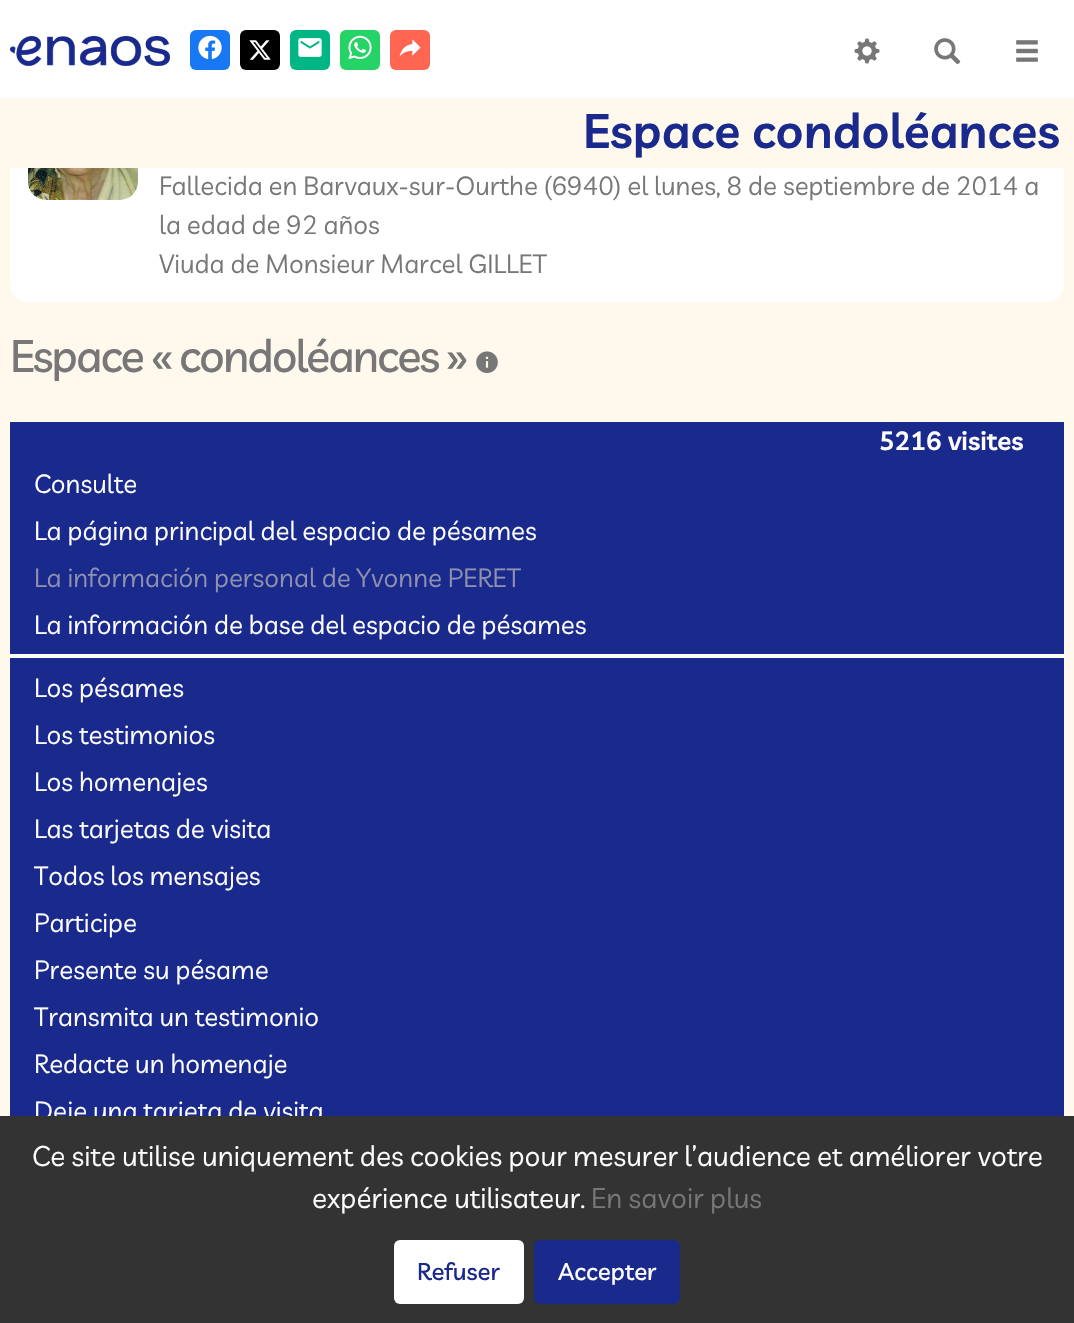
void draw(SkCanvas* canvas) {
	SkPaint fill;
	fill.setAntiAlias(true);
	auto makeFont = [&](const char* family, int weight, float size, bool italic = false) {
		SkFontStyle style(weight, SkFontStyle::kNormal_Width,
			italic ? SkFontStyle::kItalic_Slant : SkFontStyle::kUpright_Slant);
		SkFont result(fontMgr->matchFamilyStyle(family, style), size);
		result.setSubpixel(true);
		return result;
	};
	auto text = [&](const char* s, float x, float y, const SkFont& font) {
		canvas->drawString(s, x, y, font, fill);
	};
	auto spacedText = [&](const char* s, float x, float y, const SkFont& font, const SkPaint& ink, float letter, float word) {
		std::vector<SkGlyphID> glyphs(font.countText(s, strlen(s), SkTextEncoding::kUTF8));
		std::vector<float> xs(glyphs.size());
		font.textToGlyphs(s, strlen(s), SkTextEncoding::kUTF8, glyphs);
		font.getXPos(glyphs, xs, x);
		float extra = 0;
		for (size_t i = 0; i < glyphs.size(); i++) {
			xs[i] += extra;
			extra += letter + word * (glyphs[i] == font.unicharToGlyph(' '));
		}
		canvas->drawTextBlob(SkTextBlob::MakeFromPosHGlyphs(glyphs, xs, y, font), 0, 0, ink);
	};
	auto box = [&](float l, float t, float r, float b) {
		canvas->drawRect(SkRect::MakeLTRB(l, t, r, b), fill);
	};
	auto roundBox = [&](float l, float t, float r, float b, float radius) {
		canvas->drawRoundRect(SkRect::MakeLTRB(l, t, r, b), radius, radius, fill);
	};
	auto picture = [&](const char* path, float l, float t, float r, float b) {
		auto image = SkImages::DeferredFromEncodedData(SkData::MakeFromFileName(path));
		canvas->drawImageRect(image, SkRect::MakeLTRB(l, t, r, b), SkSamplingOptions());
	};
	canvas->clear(0xFFFFF8ED);
	fill.setColor(0xFFFFFFFF);
	roundBox(10, 32, 1064, 302, 18);
	fill.setColor(0xFFFFF8ED);
	box(10, 98, 1064, 168);
	fill.setColor(0xFFFFFFFF);
	box(0, 0, 1074, 98);
	picture("image0.png", 10, 35, 170, 66);
	picture("image1.png", 854, 38, 880, 64);
	picture("image2.png", 934, 38, 961, 65);
	picture("image3.png", 1016, 40, 1038, 62);
	fill.setColor(0xFF1877F2);
	roundBox(190, 30, 230, 70, 6);
	picture("image4.png", 198, 35, 222, 59);
	fill.setColor(0xFF000000);
	roundBox(240, 30, 280, 70, 6);
	picture("image5.png", 249, 40, 271, 60);
	fill.setColor(0xFF00B685);
	roundBox(290, 30, 330, 70, 6);
	picture("image6.png", 298, 38, 322, 57);
	fill.setColor(0xFF25D366);
	roundBox(340, 30, 380, 70, 6);
	picture("image7.png", 348, 35, 372, 60);
	fill.setColor(0xFFFF6550);
	roundBox(390, 30, 430, 70, 6);
	picture("image8.png", 399, 39, 421, 57);
	picture("image9.png", 28, 168, 138, 200);
	picture("image10.png", 476, 351, 498, 373);
	fill.setColor(0xFF1A298C);
	box(10, 422, 1064, 1116);
	fill.setColor(0xFFFFFFFF);
	box(10, 654, 1064, 658);
	auto font1 = makeFont("Livvic", 600, 48);
	fill.setColor(0xFF1A298C);
	text("Espace condoléances", 583, 148, font1);
	auto font2 = makeFont("Livvic", 400, 26);
	fill.setColor(0xFF777777);
	text("Fallecida en Barvaux-sur-Ourthe (6940) el lunes, 8 de septiembre de 2014 a", 159, 195, font2);
	text("la edad de 92 años", 159, 234, font2);
	text("Viuda de Monsieur Marcel GILLET", 159, 273, font2);
	auto font3 = makeFont("Livvic", 500, 45);
	spacedText("Espace « condoléances »", 10, 372, font3, fill, -2, 0);
	auto font4 = makeFont("Livvic", 600, 26);
	fill.setColor(0xFFFFFFFF);
	text("5216 visites", 879, 450, font4);
	text("Consulte", 34, 493, font2);
	text("La página principal del espacio de pésames", 34, 540, font2);
	fill.setColor(0xFF8E92B0);
	text("La información personal de Yvonne PERET", 34, 587, font2);
	fill.setColor(0xFFFFFFFF);
	text("La información de base del espacio de pésames", 34, 634, font2);
	text("Los pésames", 34, 697, font2);
	text("Los testimonios", 34, 744, font2);
	text("Los homenajes", 34, 791, font2);
	text("Las tarjetas de visita", 34, 838, font2);
	text("Todos los mensajes", 34, 885, font2);
	text("Participe", 34, 932, font2);
	text("Presente su pésame", 34, 979, font2);
	text("Transmita un testimonio", 34, 1026, font2);
	text("Redacte un homenaje", 34, 1073, font2);
	text("Deje una tarjeta de visita", 34, 1120, font2);
	fill.setColor(0xFF333333);
	box(0, 1116, 1074, 1323);
	auto font5 = makeFont("Livvic", 400, 28);
	fill.setColor(0xFFFFFFFF);
	text("Ce site utilise uniquement des cookies pour mesurer l’audience et améliorer votre", 32, 1166, font5);
	text("expérience utilisateur.", 312, 1208, font5);
	fill.setColor(0xFF777777);
	text("En savoir plus", 591, 1208, font5);
	fill.setColor(0xFFFFFFFF);
	roundBox(394, 1240, 524, 1304, 6);
	auto font6 = makeFont("Livvic", 500, 24);
	fill.setColor(0xFF1A298C);
	text("Refuser", 417, 1280, font6);
	roundBox(534, 1240, 680, 1304, 6);
	fill.setColor(0xFFFFFFFF);
	text("Accepter", 558, 1280, font6);
}
